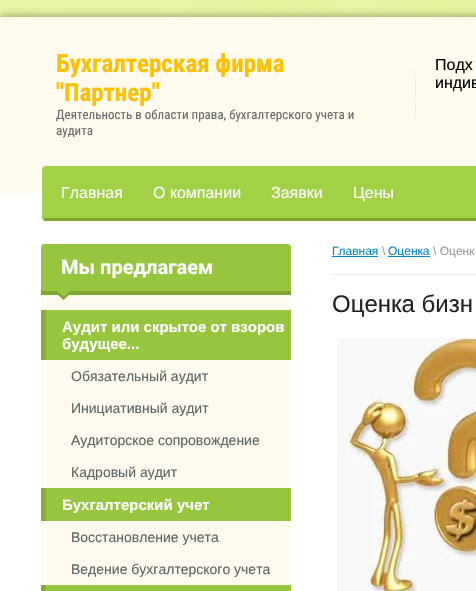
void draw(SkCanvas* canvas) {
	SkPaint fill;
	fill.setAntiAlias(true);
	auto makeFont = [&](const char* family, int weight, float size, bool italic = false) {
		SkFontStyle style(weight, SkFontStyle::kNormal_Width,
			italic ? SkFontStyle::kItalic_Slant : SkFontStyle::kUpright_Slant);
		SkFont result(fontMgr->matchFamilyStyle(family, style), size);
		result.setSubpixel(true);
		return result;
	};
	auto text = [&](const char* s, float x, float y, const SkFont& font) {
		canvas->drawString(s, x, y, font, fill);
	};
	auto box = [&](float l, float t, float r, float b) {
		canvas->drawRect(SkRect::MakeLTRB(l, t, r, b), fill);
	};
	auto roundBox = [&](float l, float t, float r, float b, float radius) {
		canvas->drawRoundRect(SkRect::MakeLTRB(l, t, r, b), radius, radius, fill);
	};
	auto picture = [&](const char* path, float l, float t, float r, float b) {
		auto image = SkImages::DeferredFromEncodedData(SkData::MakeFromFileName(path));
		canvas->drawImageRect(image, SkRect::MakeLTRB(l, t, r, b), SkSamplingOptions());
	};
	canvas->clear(0xFFFFFFFF);
	picture("image0.png", 0, 0, 476, 17);
	picture("image1.png", 475, 0, 476, 17);
	fill.setColor(0x69000000);
	fill.setMaskFilter(SkMaskFilter::MakeBlur(kNormal_SkBlurStyle, 4.5f));
	canvas->drawRect(SkRect::MakeLTRB(0, 17, 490, 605), fill);
	fill.setMaskFilter(nullptr);
	fill.setColor(0xFFFFFFFF);
	box(0, 166, 476, 591);
	fill.setColor(0xFFFEFAED);
	box(0, 17, 476, 166);
	picture("image2.png", 415, 70, 416, 119);
	fill.setColor(0xFFA2D146);
	roundBox(42, 166, 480, 221, 4);
	fill.setColor(0xFF7FA730);
	box(44, 218, 476, 221);
	fill.setColor(0xFFFEFAED);
	box(0, 166, 42, 193);
	fill.setColor(0xFF97C53D);
	canvas->drawPath(SkPathBuilder().moveTo(44, 244).lineTo(288, 244).cubicTo(289.5f, 244, 291, 245.5f, 291, 247).lineTo(291, 295).lineTo(41, 295).lineTo(41, 247).cubicTo(41, 245.5f, 42.5f, 244, 44, 244).close().detach(), fill);
	fill.setColor(0xFF7FA730);
	box(41, 291, 291, 295);
	fill.setColor(0xFFFEFAED);
	box(41, 295, 291, 585);
	picture("image3.png", 57, 291, 70, 300);
	fill.setColor(0xFF97C53D);
	box(46, 310, 291, 360);
	fill.setColor(0xFF86AA3E);
	box(41, 310, 46, 360);
	fill.setColor(0xFF97C53D);
	box(46, 488, 291, 521);
	fill.setColor(0xFF86AA3E);
	box(41, 488, 46, 521);
	fill.setColor(0xFF97C53D);
	box(41, 585, 291, 591);
	fill.setColor(0xFF86AA3E);
	box(41, 585, 46, 591);
	fill.setColor(0xFF0088CC);
	box(332, 256, 378, 257);
	box(388, 256, 430, 257);
	fill.setColor(0xFFEAEAEA);
	box(332, 274, 476, 275);
	picture("image4.png", 337, 338, 476, 591);
	auto font1 = makeFont("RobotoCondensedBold", 700, 25);
	fill.setColor(0xFFFFC000);
	text("Бухгалтерская фирма", 56, 72, font1);
	text("\"Партнер\"", 56, 101, font1);
	auto font2 = makeFont("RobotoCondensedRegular", 400, 13);
	fill.setColor(0xFF666666);
	text("Деятельность в области права, бухгалтерского учета и", 56, 119, font2);
	text("аудита", 56, 135, font2);
	auto font3 = makeFont("Liberation Sans", 400, 16);
	fill.setColor(0xFF000000);
	text("Подх", 435, 70, font3);
	text("индив", 435, 88, font3);
	fill.setColor(0xFFFFFFFF);
	text("Главная", 61, 198, font3);
	text("О компании", 153, 198, font3);
	text("Заявки", 271, 198, font3);
	text("Цены", 353, 198, font3);
	auto font4 = makeFont("Roboto", 700, 20);
	text("Мы предлагаем", 61, 274, font4);
	auto font5 = makeFont("Liberation Sans", 700, 15);
	text("Аудит или скрытое от взоров", 62, 332, font5);
	text("будущее...", 62, 349, font5);
	auto font6 = makeFont("Liberation Sans", 400, 14);
	fill.setColor(0xFF596465);
	text("Обязательный аудит", 71, 381, font6);
	text("Инициативный аудит", 71, 413, font6);
	text("Аудиторское сопровождение", 71, 445, font6);
	text("Кадровый аудит", 71, 477, font6);
	fill.setColor(0xFFFFFFFF);
	text("Бухгалтерский учет", 62, 510, font5);
	fill.setColor(0xFF596465);
	text("Восстановление учета", 71, 542, font6);
	text("Ведение бухгалтерского учета", 71, 574, font6);
	auto font7 = makeFont("Liberation Sans", 400, 12);
	fill.setColor(0xFF0088CC);
	text("Главная", 332, 255, font7);
	fill.setColor(0xFF999999);
	text("\\", 382, 255, font7);
	fill.setColor(0xFF0088CC);
	text("Оценка", 388, 255, font7);
	fill.setColor(0xFF999999);
	text("\\ Оценк", 433, 255, font7);
	auto font8 = makeFont("Liberation Sans", 400, 24);
	fill.setColor(0xFF222222);
	text("Оценка бизн", 332, 312, font8);
}
